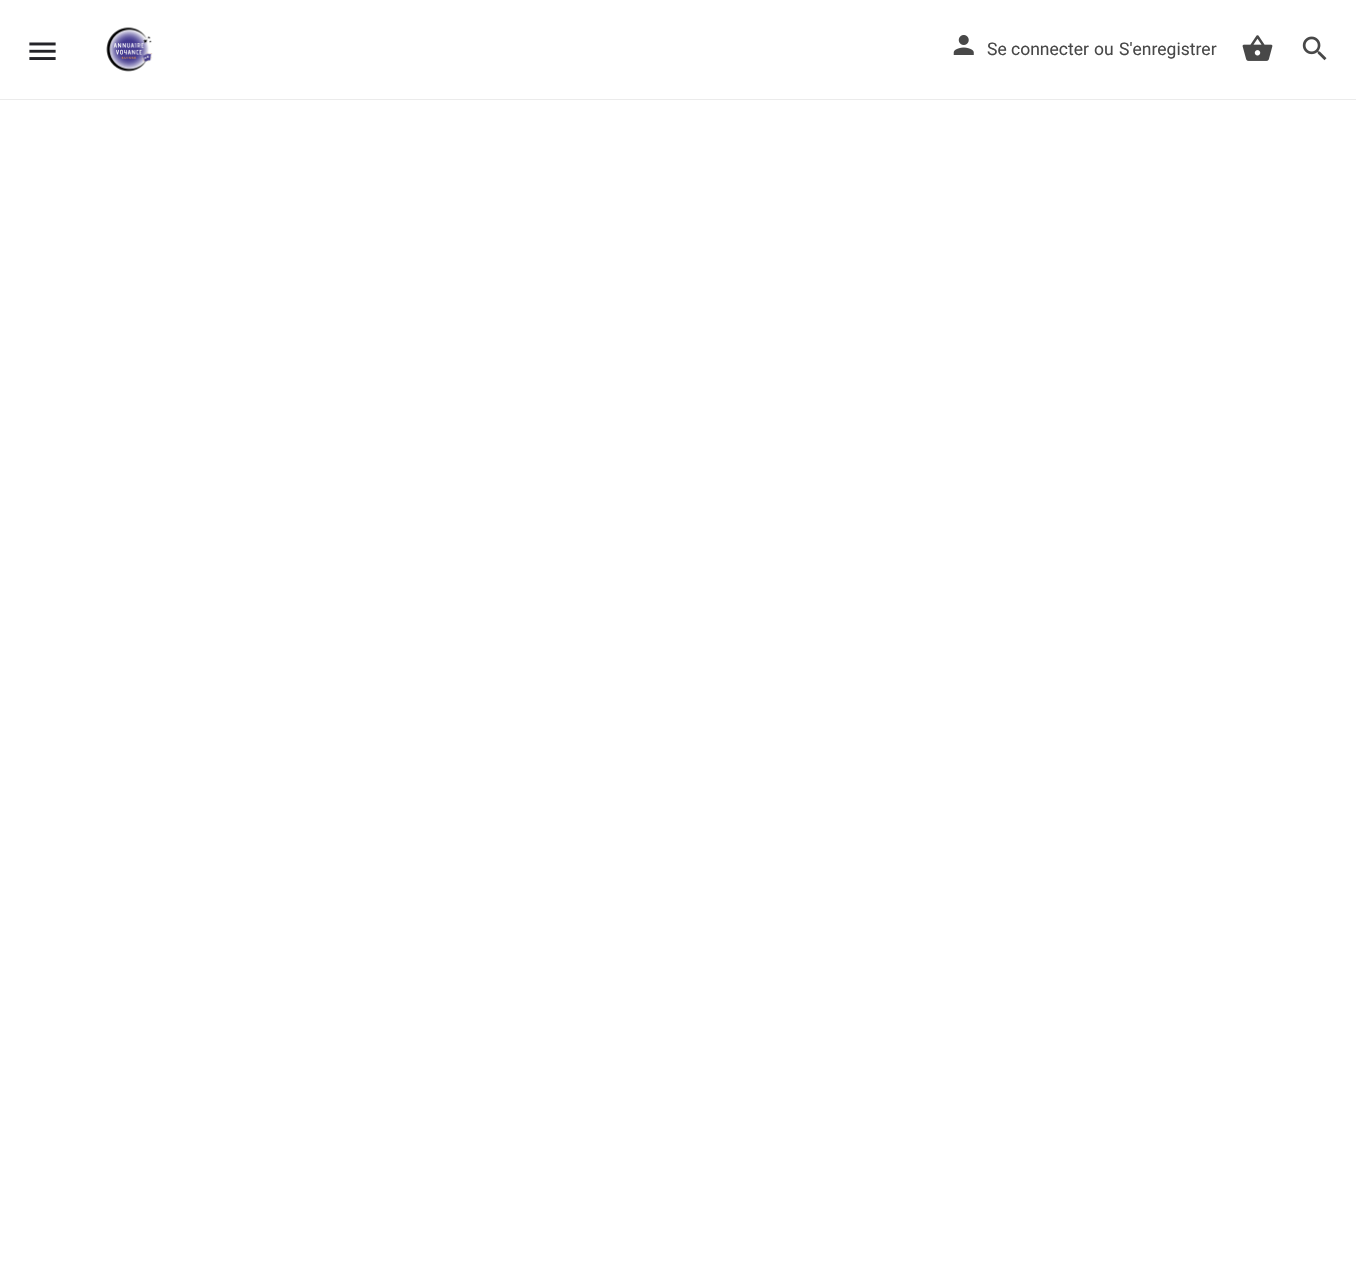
void draw(SkCanvas* canvas) {
	SkPaint fill;
	fill.setAntiAlias(true);
	auto makeFont = [&](const char* family, int weight, float size, bool italic = false) {
		SkFontStyle style(weight, SkFontStyle::kNormal_Width,
			italic ? SkFontStyle::kItalic_Slant : SkFontStyle::kUpright_Slant);
		SkFont result(fontMgr->matchFamilyStyle(family, style), size);
		result.setSubpixel(true);
		return result;
	};
	auto text = [&](const char* s, float x, float y, const SkFont& font) {
		canvas->drawString(s, x, y, font, fill);
	};
	auto box = [&](float l, float t, float r, float b) {
		canvas->drawRect(SkRect::MakeLTRB(l, t, r, b), fill);
	};
	auto picture = [&](const char* path, float l, float t, float r, float b) {
		auto image = SkImages::DeferredFromEncodedData(SkData::MakeFromFileName(path));
		canvas->drawImageRect(image, SkRect::MakeLTRB(l, t, r, b), SkSamplingOptions());
	};
	canvas->clear(0xFFFFFFFF);
	picture("image0.png", 29, 42, 56, 60);
	picture("image1.png", 106, 27, 153, 72);
	picture("image2.png", 953, 35, 974, 55);
	picture("image3.png", 1242, 35, 1273, 61);
	picture("image4.png", 1302, 36, 1327, 61);
	fill.setColor(0xFFEBEBEB);
	box(0, 99, 1356, 100);
	auto font1 = makeFont("Roboto", 400, 17.5f);
	fill.setColor(0xFF484848);
	text("Se connecter", 987, 55, font1);
	text("ou", 1094, 55, font1);
	text("S'enregistrer", 1119, 55, font1);
}
